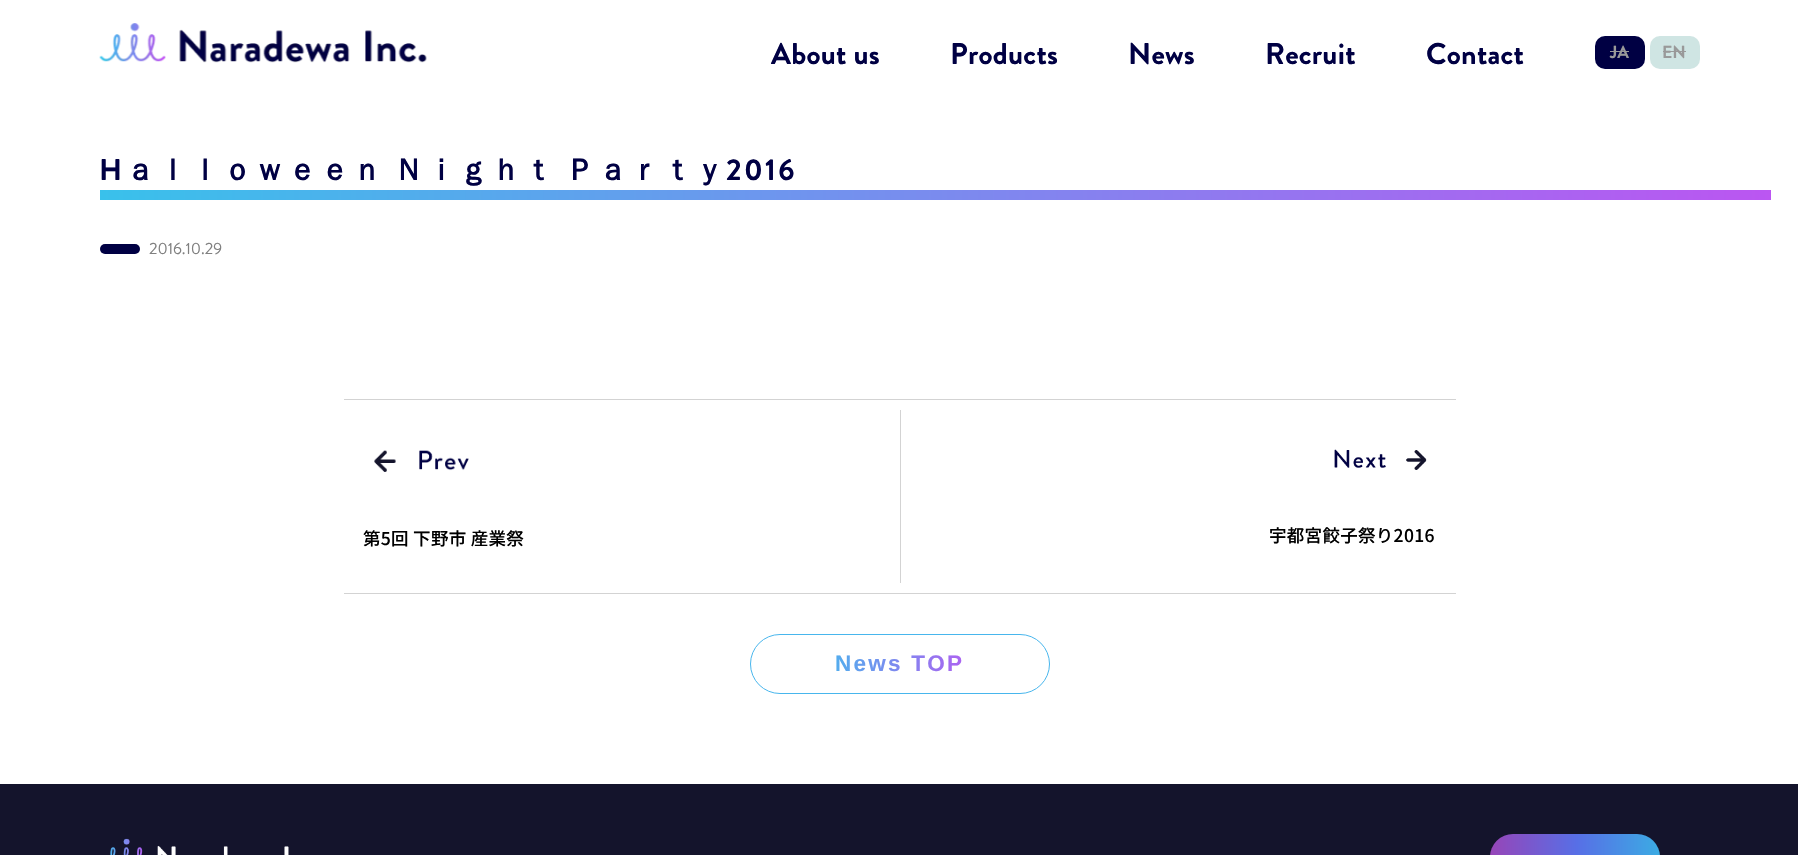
void draw(SkCanvas* canvas) {
	SkPaint fill;
	fill.setAntiAlias(true);
	auto makeFont = [&](const char* family, int weight, float size, bool italic = false) {
		SkFontStyle style(weight, SkFontStyle::kNormal_Width,
			italic ? SkFontStyle::kItalic_Slant : SkFontStyle::kUpright_Slant);
		SkFont result(fontMgr->matchFamilyStyle(family, style), size);
		result.setSubpixel(true);
		return result;
	};
	auto text = [&](const char* s, float x, float y, const SkFont& font) {
		canvas->drawString(s, x, y, font, fill);
	};
	auto spacedText = [&](const char* s, float x, float y, const SkFont& font, const SkPaint& ink, float letter, float word) {
		std::vector<SkGlyphID> glyphs(font.countText(s, strlen(s), SkTextEncoding::kUTF8));
		std::vector<float> xs(glyphs.size());
		font.textToGlyphs(s, strlen(s), SkTextEncoding::kUTF8, glyphs);
		font.getXPos(glyphs, xs, x);
		float extra = 0;
		for (size_t i = 0; i < glyphs.size(); i++) {
			xs[i] += extra;
			extra += letter + word * (glyphs[i] == font.unicharToGlyph(' '));
		}
		canvas->drawTextBlob(SkTextBlob::MakeFromPosHGlyphs(glyphs, xs, y, font), 0, 0, ink);
	};
	auto box = [&](float l, float t, float r, float b) {
		canvas->drawRect(SkRect::MakeLTRB(l, t, r, b), fill);
	};
	auto roundBox = [&](float l, float t, float r, float b, float radius) {
		canvas->drawRoundRect(SkRect::MakeLTRB(l, t, r, b), radius, radius, fill);
	};
	auto picture = [&](const char* path, float l, float t, float r, float b) {
		auto image = SkImages::DeferredFromEncodedData(SkData::MakeFromFileName(path));
		canvas->drawImageRect(image, SkRect::MakeLTRB(l, t, r, b), SkSamplingOptions());
	};
	canvas->clear(0xFFFFFFFF);
	picture("image0.png", 99, 23, 427, 63);
	fill.setColor(0xFF000043);
	roundBox(1595, 36, 1645, 69, 10);
	fill.setColor(0xFF999999);
	box(1610, 51, 1629, 52);
	fill.setColor(0xFFCFE5E3);
	roundBox(1650, 36, 1700, 69, 10);
	fill.setColor(0xFF999999);
	box(1663, 51, 1686, 52);
	{
		const SkColor colors[] = {0xFF39C1EB, 0xFFC44EF2};
		const float stops[] = {0, 1};
		const SkPoint ends[] = {{100, 195}, {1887, 195}};
		fill.setShader(SkGradientShader::MakeLinear(ends, colors, stops, 2, SkTileMode::kClamp));
		fill.setAlpha(255);
	}
	box(100, 190, 1771, 200);
	fill.setShader(nullptr);
	fill.setColor(0xFF000043);
	roundBox(100, 244, 140, 254, 5);
	fill.setColor(0xFFD3D3D3);
	box(344, 399, 1456, 400);
	box(344, 593, 1456, 594);
	picture("image1.png", 374, 450, 469, 472);
	box(900, 410, 901, 583);
	picture("image2.png", 1334, 449, 1427, 470);
	fill.setStyle(SkPaint::kStroke_Style);
	fill.setStrokeWidth(1);
	fill.setColor(0xFF48B6ED);
	canvas->drawRoundRect(SkRect::MakeLTRB(750.5f, 634.5f, 1049.5f, 693.5f), 29.5f, 29.5f, fill);
	fill.setStyle(SkPaint::kFill_Style);
	fill.setColor(0xFF14142C);
	box(0, 784, 1798, 855);
	picture("image3.png", 110, 838, 289, 855);
	{
		const SkColor colors[] = {0xFF3BADE3, 0xFF576FE6, 0xFF9844B7, 0xFFFF357F};
		const float stops[] = {0, 0.25f, 0.51f, 1};
		const SkPoint ends[] = {{1662, 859}, {1322, 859}};
		fill.setShader(SkGradientShader::MakeLinear(ends, colors, stops, 4, SkTileMode::kClamp));
		fill.setAlpha(255);
	}
	roundBox(1490, 834, 1660, 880, 25);
	auto font1 = makeFont("Brandon Grotesque", 700, 30);
	fill.setShader(nullptr);
	fill.setColor(0xFF000043);
	spacedText("About us", 771, 64, font1, fill, 0.25f, 0);
	spacedText("Products", 950, 64, font1, fill, 0.25f, 0);
	spacedText("News", 1128, 64, font1, fill, 0.25f, 0);
	spacedText("Recruit", 1265, 64, font1, fill, 0.25f, 0);
	spacedText("Contact", 1426, 64, font1, fill, 0.25f, 0);
	auto font2 = makeFont("Brandon Grotesque", 700, 17.5f);
	fill.setColor(0xFF999999);
	text("JA", 1610, 58, font2);
	text("EN", 1662, 58, font2);
	fill.setColor(0xFF000043);
	spacedText("H", 99, 180, font1, fill, 2.4f, 0);
	auto font3 = makeFont("WenQuanYi Zen Hei", 700, 30);
	spacedText("ａｌｌｏｗｅｅｎ Ｎｉｇｈｔ Ｐａｒｔｙ", 125, 180, font3, fill, 2.4f, -2);
	spacedText("2016", 726, 180, font1, fill, 2.4f, 0);
	auto font4 = makeFont("Brandon Grotesque", 400, 16.25f);
	fill.setColor(0xFF808080);
	text("2016.10.29", 149, 254, font4);
	auto font5 = makeFont("Noto Sans JP", 500, 17.5f);
	fill.setColor(0xFF000000);
	spacedText("第5回 下野市 産業祭", 363, 545, font5, fill, 0.3f, 0);
	spacedText("宇都宮餃子祭り2016", 1269, 542, font5, fill, 0.3f, 0);
	auto font6 = makeFont("Liberation Sans", 700, 22.5f);
	{
		const SkColor colors[] = {0xFF43BAED, 0xFFC54EF2};
		const float stops[] = {0, 1};
		const SkPoint ends[] = {{811, 664}, {1001, 664}};
		fill.setShader(SkGradientShader::MakeLinear(ends, colors, stops, 2, SkTileMode::kClamp));
		fill.setAlpha(255);
	}
	spacedText("News TOP", 835, 671, font6, fill, 2.25f, 0);
}
